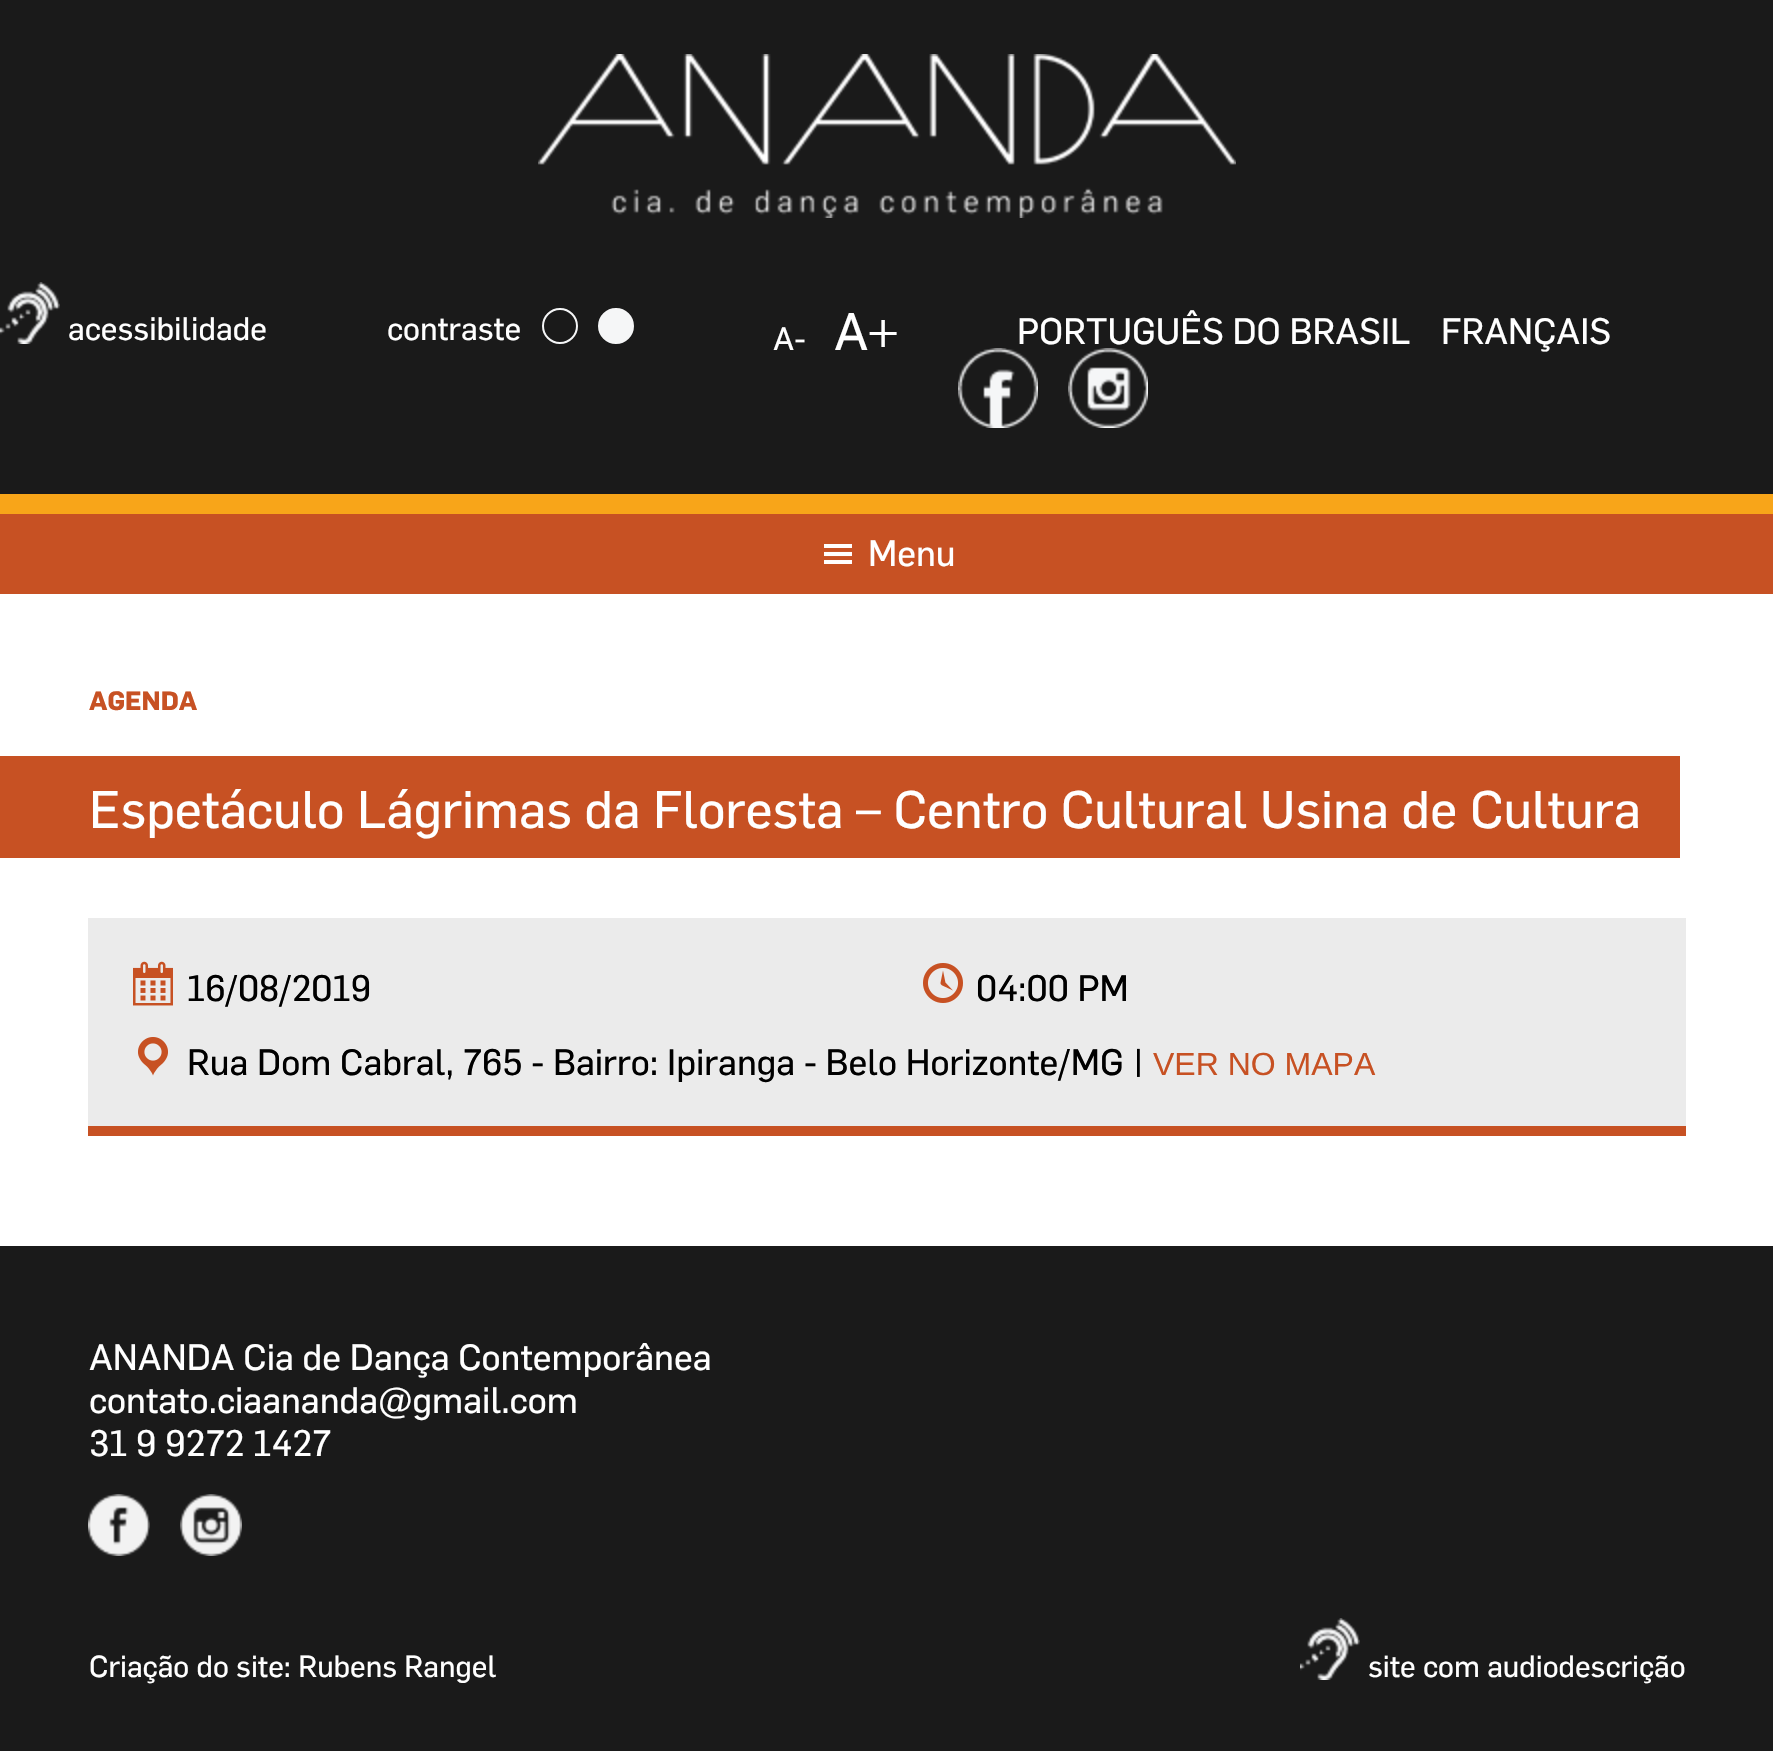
void draw(SkCanvas* canvas) {
	SkPaint fill;
	fill.setAntiAlias(true);
	auto makeFont = [&](const char* family, int weight, float size, bool italic = false) {
		SkFontStyle style(weight, SkFontStyle::kNormal_Width,
			italic ? SkFontStyle::kItalic_Slant : SkFontStyle::kUpright_Slant);
		SkFont result(fontMgr->matchFamilyStyle(family, style), size);
		result.setSubpixel(true);
		return result;
	};
	auto text = [&](const char* s, float x, float y, const SkFont& font) {
		canvas->drawString(s, x, y, font, fill);
	};
	auto box = [&](float l, float t, float r, float b) {
		canvas->drawRect(SkRect::MakeLTRB(l, t, r, b), fill);
	};
	auto picture = [&](const char* path, float l, float t, float r, float b) {
		auto image = SkImages::DeferredFromEncodedData(SkData::MakeFromFileName(path));
		canvas->drawImageRect(image, SkRect::MakeLTRB(l, t, r, b), SkSamplingOptions());
	};
	canvas->clear(0xFF1A1A1A);
	picture("image0.png", 538, 54, 1236, 218);
	picture("image1.png", 0, 282, 60, 344);
	fill.setStyle(SkPaint::kStroke_Style);
	fill.setStrokeWidth(2);
	fill.setColor(0xFFF5F6F7);
	canvas->drawCircle(560, 326, 17, fill);
	fill.setStyle(SkPaint::kFill_Style);
	canvas->drawCircle(616, 326, 17, fill);
	fill.setStyle(SkPaint::kStroke_Style);
	canvas->drawCircle(616, 326, 17, fill);
	picture("image2.png", 958, 348, 1038, 428);
	picture("image3.png", 1068, 348, 1148, 428);
	fill.setStyle(SkPaint::kFill_Style);
	fill.setColor(0xFFF8A519);
	box(0, 494, 1773, 514);
	fill.setColor(0xFFC75123);
	box(0, 514, 1773, 594);
	picture("image4.png", 824, 544, 852, 564);
	fill.setColor(0xFFFFFFFF);
	box(0, 594, 1773, 1246);
	fill.setColor(0xFFC75123);
	box(0, 756, 1680, 858);
	fill.setColor(0xFFEBEBEB);
	box(88, 918, 1686, 1126);
	fill.setColor(0xFFC75123);
	box(88, 1126, 1686, 1136);
	picture("image5.png", 133, 961, 173, 1006);
	picture("image6.png", 923, 963, 963, 1003);
	picture("image7.png", 138, 1037, 168, 1076);
	picture("image8.png", 88, 1494, 150, 1556);
	picture("image9.png", 180, 1494, 242, 1556);
	picture("image1.png", 1300, 1618, 1360, 1680);
	auto font1 = makeFont("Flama", 600, 32);
	fill.setColor(0xFFFFFFFF);
	text("acessibilidade", 68, 340, font1);
	text("contraste", 387, 340, font1);
	text("A-", 773, 350, font1);
	auto font2 = makeFont("Flama", 600, 52);
	text("A+", 834, 350, font2);
	auto font3 = makeFont("Flama", 600, 36);
	text("PORTUGUÊS DO BRASIL", 1017, 344, font3);
	text("FRANÇAIS", 1441, 344, font3);
	text("Menu", 868, 566, font3);
	auto font4 = makeFont("Flama", 700, 26);
	fill.setColor(0xFFC75123);
	text("AGENDA", 89, 710, font4);
	fill.setColor(0xFFFFFFFF);
	text("Espetáculo Lágrimas da Floresta – Centro Cultural Usina de Cultura", 89, 828, font2);
	fill.setColor(0xFF000000);
	text("16/08/2019", 187, 1001, font3);
	text("04:00 PM", 976, 1001, font3);
	text("Rua Dom Cabral, 765 - Bairro: Ipiranga - Belo Horizonte/MG |", 187, 1075, font3);
	auto font5 = makeFont("Liberation Sans", 400, 32);
	fill.setColor(0xFFC75123);
	text("VER NO MAPA", 1153, 1075, font5);
	fill.setColor(0xFFFFFFFF);
	text("ANANDA Cia de Dança Contemporânea", 89, 1370, font3);
	text("contato.ciaananda@gmail.com", 89, 1413, font3);
	text("31 9 9272 1427", 89, 1456, font3);
	auto font6 = makeFont("Flama", 600, 30);
	text("Criação do site: Rubens Rangel", 89, 1677, font6);
	text("site com audiodescrição", 1368, 1677, font6);
}
